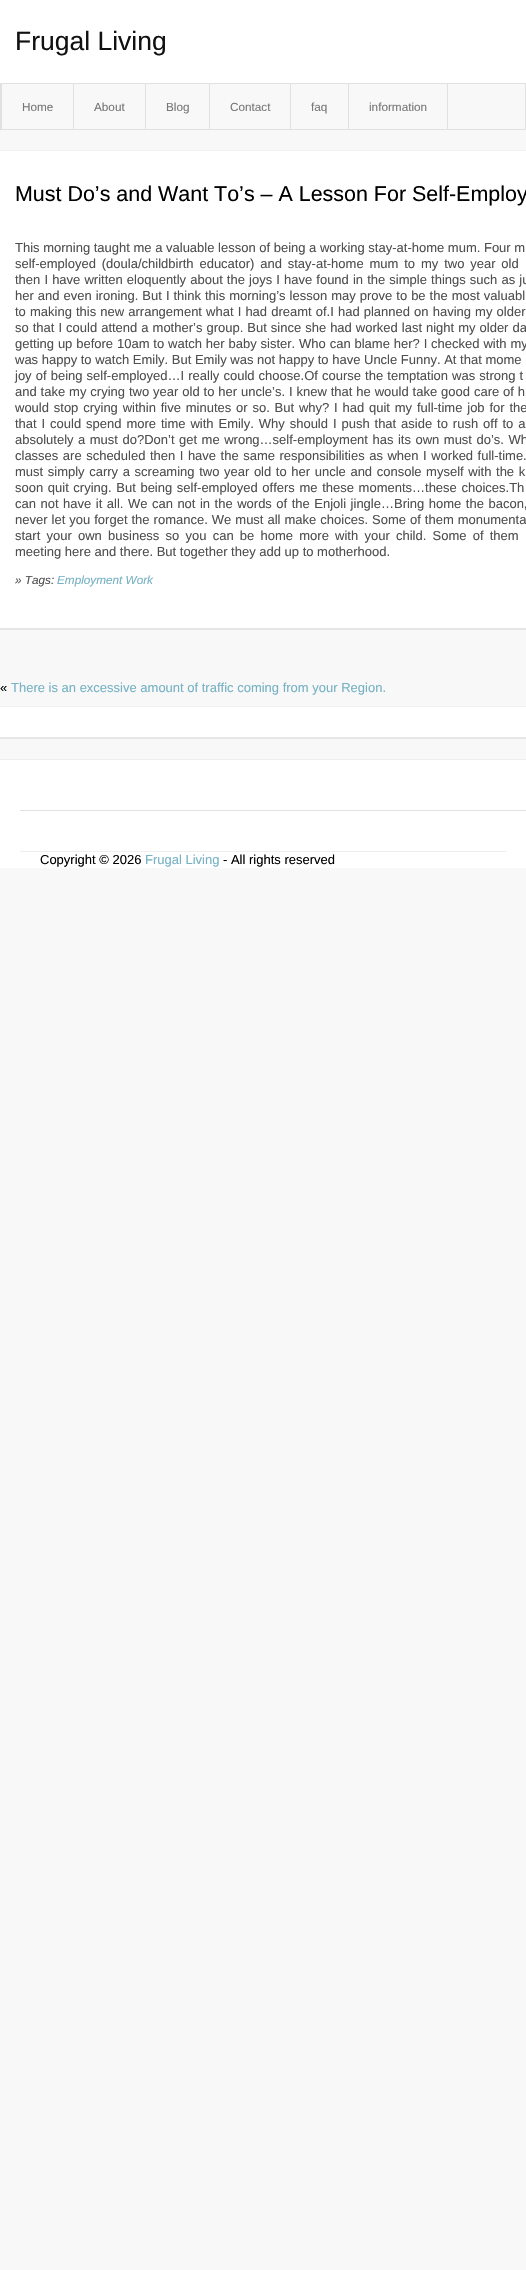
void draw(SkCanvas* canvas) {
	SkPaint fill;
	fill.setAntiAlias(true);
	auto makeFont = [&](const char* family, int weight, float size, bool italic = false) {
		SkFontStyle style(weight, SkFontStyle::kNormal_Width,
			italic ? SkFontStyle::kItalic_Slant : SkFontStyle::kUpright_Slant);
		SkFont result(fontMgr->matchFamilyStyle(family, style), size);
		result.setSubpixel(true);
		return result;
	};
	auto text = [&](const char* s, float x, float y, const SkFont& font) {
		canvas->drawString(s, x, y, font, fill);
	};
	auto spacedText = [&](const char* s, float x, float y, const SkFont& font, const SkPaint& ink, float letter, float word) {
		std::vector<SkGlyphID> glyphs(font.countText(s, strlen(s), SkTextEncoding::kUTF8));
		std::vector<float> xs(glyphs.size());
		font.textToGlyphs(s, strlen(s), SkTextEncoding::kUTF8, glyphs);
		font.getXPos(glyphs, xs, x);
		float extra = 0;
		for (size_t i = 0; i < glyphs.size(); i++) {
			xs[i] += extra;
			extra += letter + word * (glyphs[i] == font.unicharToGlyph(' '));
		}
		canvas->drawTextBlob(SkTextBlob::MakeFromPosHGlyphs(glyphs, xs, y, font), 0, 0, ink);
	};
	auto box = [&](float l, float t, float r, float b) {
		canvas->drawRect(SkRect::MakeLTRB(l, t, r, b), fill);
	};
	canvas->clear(0xFFF8F8F8);
	fill.setColor(0xFFFFFFFF);
	box(0, 0, 526, 83);
	fill.setStyle(SkPaint::kStroke_Style);
	fill.setStrokeWidth(1);
	fill.setColor(0xFFE1E1E1);
	canvas->drawRect(SkRect::MakeLTRB(0.5f, 83.5f, 525.5f, 129.5f), fill);
	fill.setStyle(SkPaint::kFill_Style);
	box(1, 84, 2, 130);
	box(73, 84, 74, 130);
	box(145, 84, 146, 130);
	box(209, 84, 210, 130);
	box(290, 84, 291, 130);
	box(348, 84, 349, 130);
	box(447, 84, 448, 130);
	fill.setColor(0xFFFFFFFF);
	box(0, 151, 526, 628);
	fill.setColor(0xFFF1F1F1);
	box(0, 150, 526, 151);
	fill.setColor(0xFFE6E6E6);
	box(0, 628, 526, 630);
	fill.setColor(0xFFFFFFFF);
	box(0, 707, 526, 737);
	fill.setColor(0xFFF1F1F1);
	box(0, 706, 526, 707);
	fill.setColor(0xFFE6E6E6);
	box(0, 737, 526, 739);
	fill.setColor(0xFFFFFFFF);
	box(0, 760, 526, 868);
	fill.setColor(0xFFEEEEEE);
	box(0, 759, 526, 760);
	fill.setColor(0xFFE1E1E1);
	box(20, 810, 526, 811);
	fill.setColor(0xFFEEEEEE);
	box(20, 851, 506, 852);
	auto font1 = makeFont("Liberation Sans", 400, 26.5f);
	fill.setColor(0xFF111111);
	text("Frugal Living", 15, 50, font1);
	auto font2 = makeFont("Liberation Sans", 400, 11.75f);
	fill.setColor(0xFF777777);
	text("Home", 22, 111, font2);
	text("About", 94, 111, font2);
	text("Blog", 166, 111, font2);
	text("Contact", 230, 111, font2);
	text("faq", 311, 111, font2);
	text("information", 369, 111, font2);
	auto font3 = makeFont("Liberation Sans", 400, 21.45f);
	fill.setColor(0xFF000000);
	text("Must Do’s and Want To’s – A Lesson For Self-Employ", 15, 201, font3);
	auto font4 = makeFont("Liberation Sans", 400, 13);
	fill.setColor(0xFF4F4F4F);
	text("This morning taught me a valuable lesson of being a working stay-at-home mum. Four m", 15, 252, font4);
	spacedText("self-employed (doula/childbirth educator) and stay-at-home mum to my two year old", 15, 268, font4, fill, 0, 2.25f);
	spacedText("then I have written eloquently about the joys I have found in the simple things such as ju", 15, 284, font4, fill, 0, 0.5f);
	spacedText("her and even ironing. But I think this morning’s lesson may prove to be the most valuabl", 15, 300, font4, fill, 0, 0.4f);
	spacedText("to making this new arrangement what I had dreamt of.I had planned on having my older", 15, 316, font4, fill, 0, 0.5f);
	spacedText("so that I could attend a mother’s group. But since she had worked last night my older da", 15, 332, font4, fill, 0, 0.4f);
	spacedText("getting up before 10am to watch her baby sister. Who can blame her? I checked with my", 15, 348, font4, fill, 0, 0.25f);
	text("was happy to watch Emily. But Emily was not happy to have Uncle Funny. At that mome", 15, 364, font4);
	spacedText("joy of being self-employed…I really could choose.Of course the temptation was strong t", 15, 380, font4, fill, 0, 0.5f);
	spacedText("and take my crying two year old to her uncle’s. I knew that he would take good care of h", 15, 396, font4, fill, 0, 0.3f);
	spacedText("would stop crying within five minutes or so. But why? I had quit my full-time job for the", 15, 412, font4, fill, 0, 1.2f);
	spacedText("that I could spend more time with Emily. Why should I push that aside to rush off to a", 15, 428, font4, fill, 0, 1.3f);
	spacedText("absolutely a must do?Don’t get me wrong…self-employment has its own must do’s. Wh", 15, 444, font4, fill, 0, 0.9f);
	spacedText("classes are scheduled then I have the same responsibilities as when I worked full-time.", 15, 460, font4, fill, 0, 0.9f);
	spacedText("must simply carry a screaming two year old to her uncle and console myself with the k", 15, 476, font4, fill, 0, 1);
	spacedText("soon quit crying. But being self-employed offers me these moments…these choices.Th", 15, 492, font4, fill, 0, 1);
	spacedText("can not have it all. We can not in the words of the Enjoli jingle…Bring home the bacon,", 15, 508, font4, fill, 0, 0.9f);
	spacedText("never let you forget the romance. We must all make choices. Some of them monumenta", 15, 524, font4, fill, 0, 0.4f);
	spacedText("start your own business so you can be home more with your child. Some of them", 15, 540, font4, fill, 0, 2.6f);
	text("meeting here and there. But together they add up to motherhood.", 15, 556, font4);
	auto font5 = makeFont("Liberation Sans", 400, 11.75f, true);
	text("» Tags:", 15, 584, font5);
	fill.setColor(0xFF76B2C4);
	text("Employment Work", 57, 584, font5);
	fill.setColor(0xFF000000);
	text("«", 0, 692, font4);
	fill.setColor(0xFF76B2C4);
	text("There is an excessive amount of traffic coming from your Region.", 11, 692, font4);
	fill.setColor(0xFF000000);
	text("Copyright © 2026", 40, 864, font4);
	fill.setColor(0xFF76B2C4);
	text("Frugal Living", 145, 864, font4);
	fill.setColor(0xFF000000);
	text("- All rights reserved", 223, 864, font4);
}
